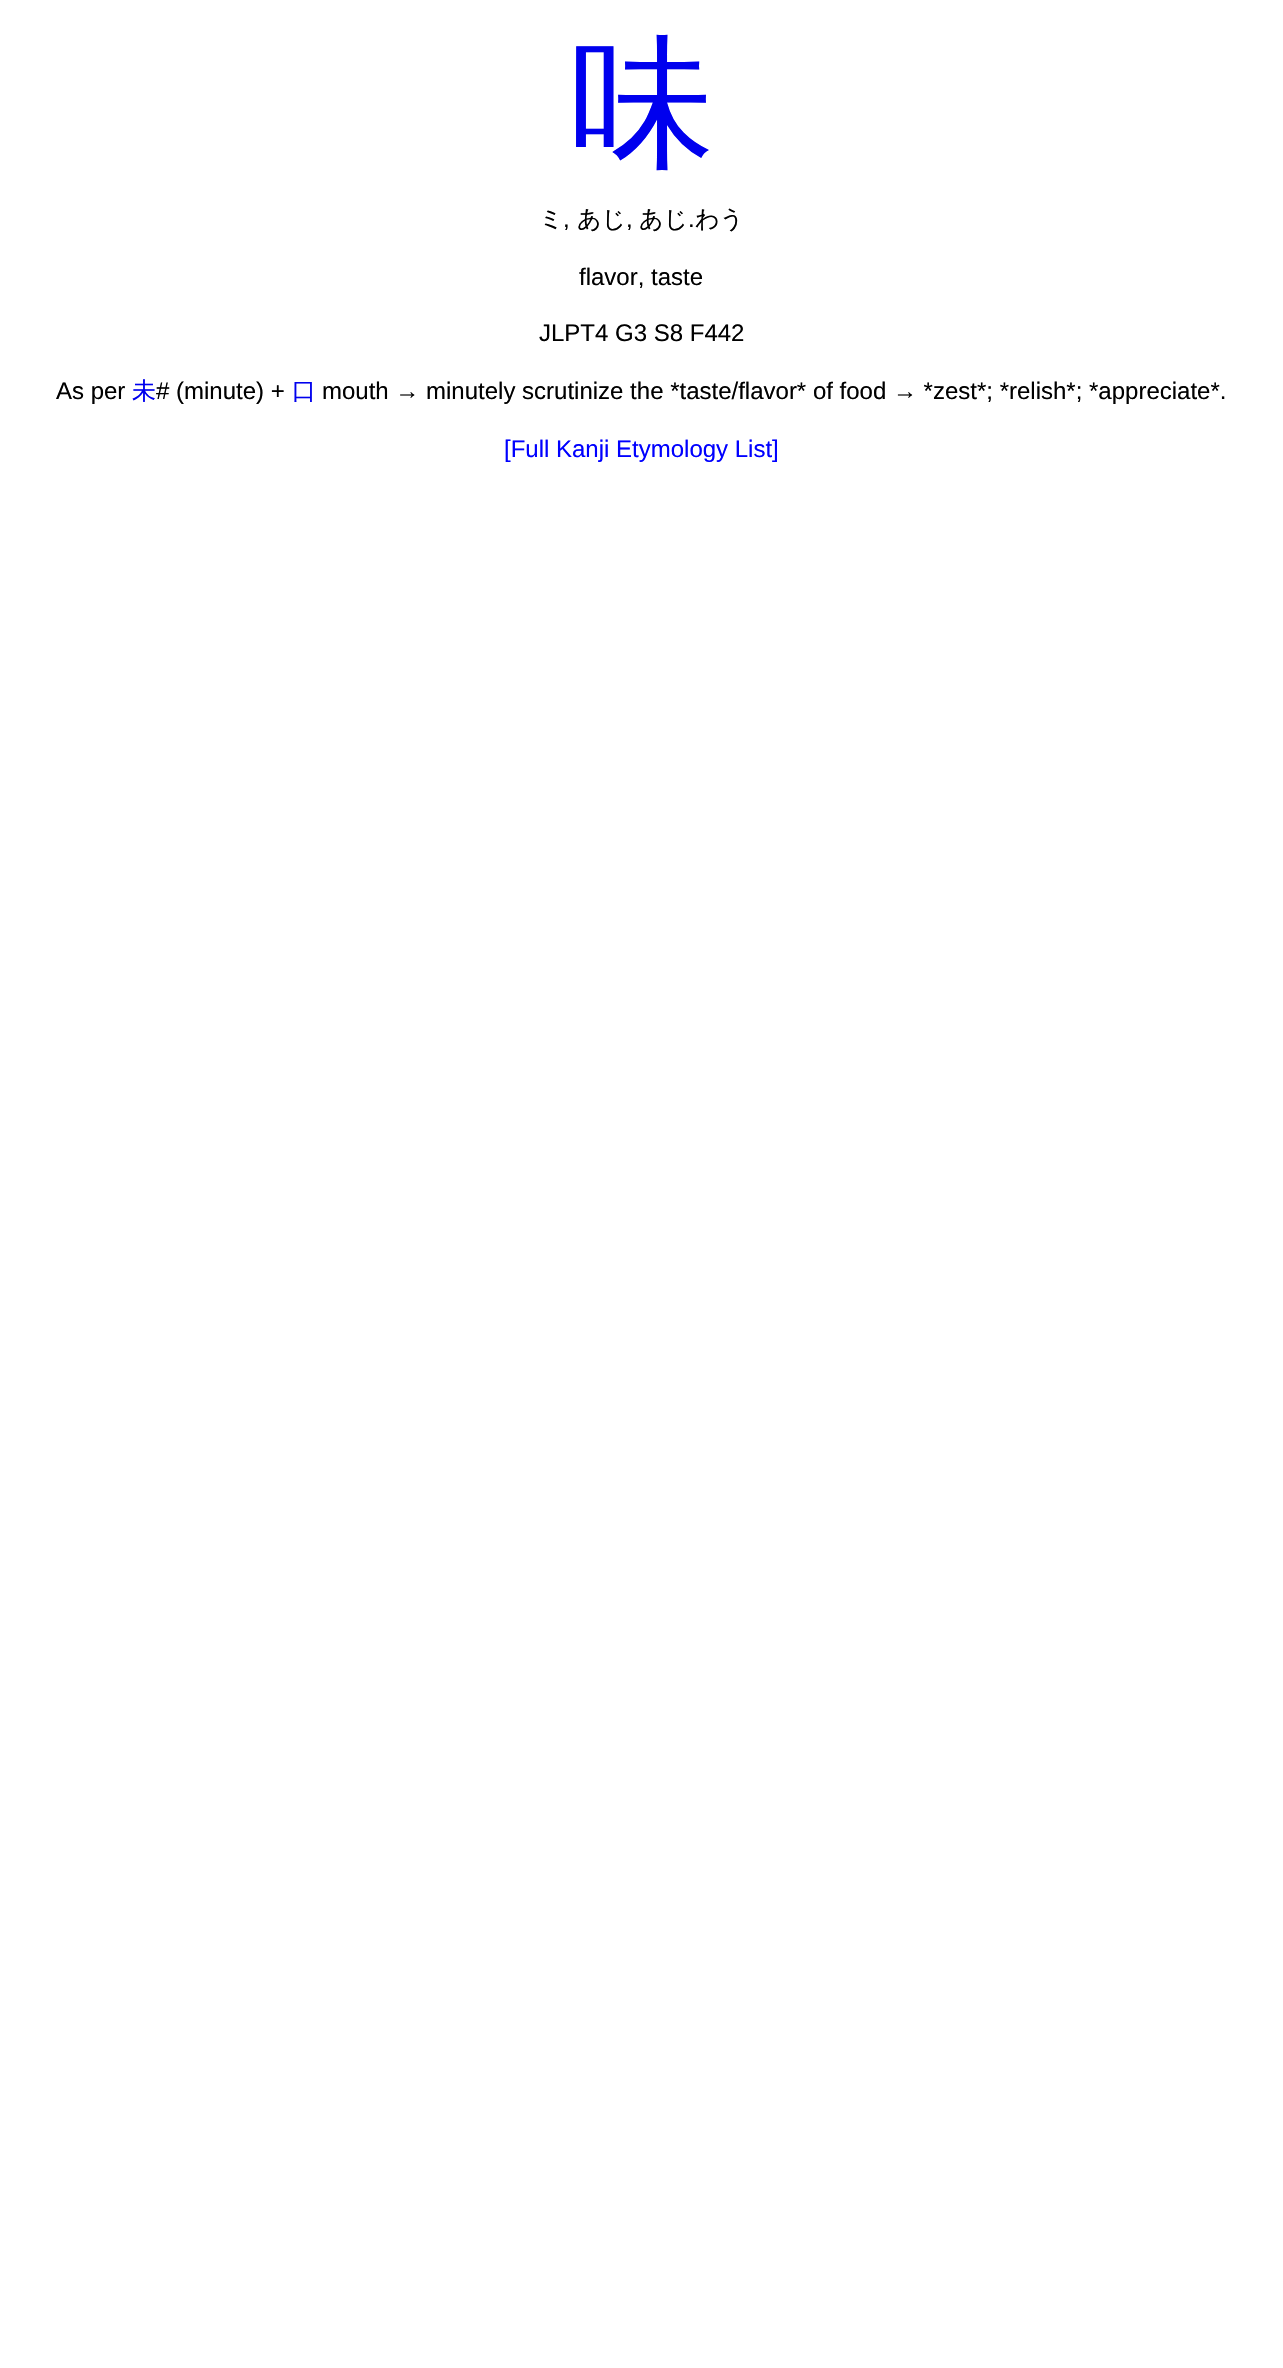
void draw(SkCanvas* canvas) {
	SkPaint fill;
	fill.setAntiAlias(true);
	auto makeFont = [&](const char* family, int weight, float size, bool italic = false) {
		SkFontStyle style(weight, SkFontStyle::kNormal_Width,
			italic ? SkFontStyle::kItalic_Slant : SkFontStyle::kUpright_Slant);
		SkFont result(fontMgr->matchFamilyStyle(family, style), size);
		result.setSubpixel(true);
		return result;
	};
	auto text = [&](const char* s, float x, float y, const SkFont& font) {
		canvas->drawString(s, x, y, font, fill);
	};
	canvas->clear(0xFFFFFFFF);
	auto font1 = makeFont("WenQuanYi Zen Hei", 500, 144);
	fill.setColor(0xFF0000EE);
	text("味", 570, 153, font1);
	auto font2 = makeFont("WenQuanYi Zen Hei", 500, 24);
	fill.setColor(0xFF000000);
	text("ミ", 539, 227, font2);
	auto font3 = makeFont("Liberation Sans", 400, 24);
	text(",", 563, 227, font3);
	text("あじ", 577, 227, font2);
	text(",", 626, 227, font3);
	text("あじ", 639, 227, font2);
	text(".", 688, 227, font3);
	text("わう", 695, 227, font2);
	text("flavor, taste", 579, 285, font3);
	text("JLPT4 G3 S8 F442", 539, 341, font3);
	text("As per", 56, 399, font3);
	fill.setColor(0xFF0000EE);
	text("未", 132, 399, font2);
	fill.setColor(0xFF000000);
	text("# (minute) +", 156, 399, font3);
	fill.setColor(0xFF0000EE);
	text("口", 292, 399, font2);
	fill.setColor(0xFF000000);
	text("mouth → minutely scrutinize the *taste/flavor* of food → *zest*; *relish*; *appreciate*.", 322, 399, font3);
	fill.setColor(0xFF0000FF);
	text("[Full Kanji Etymology List]", 504, 457, font3);
}
